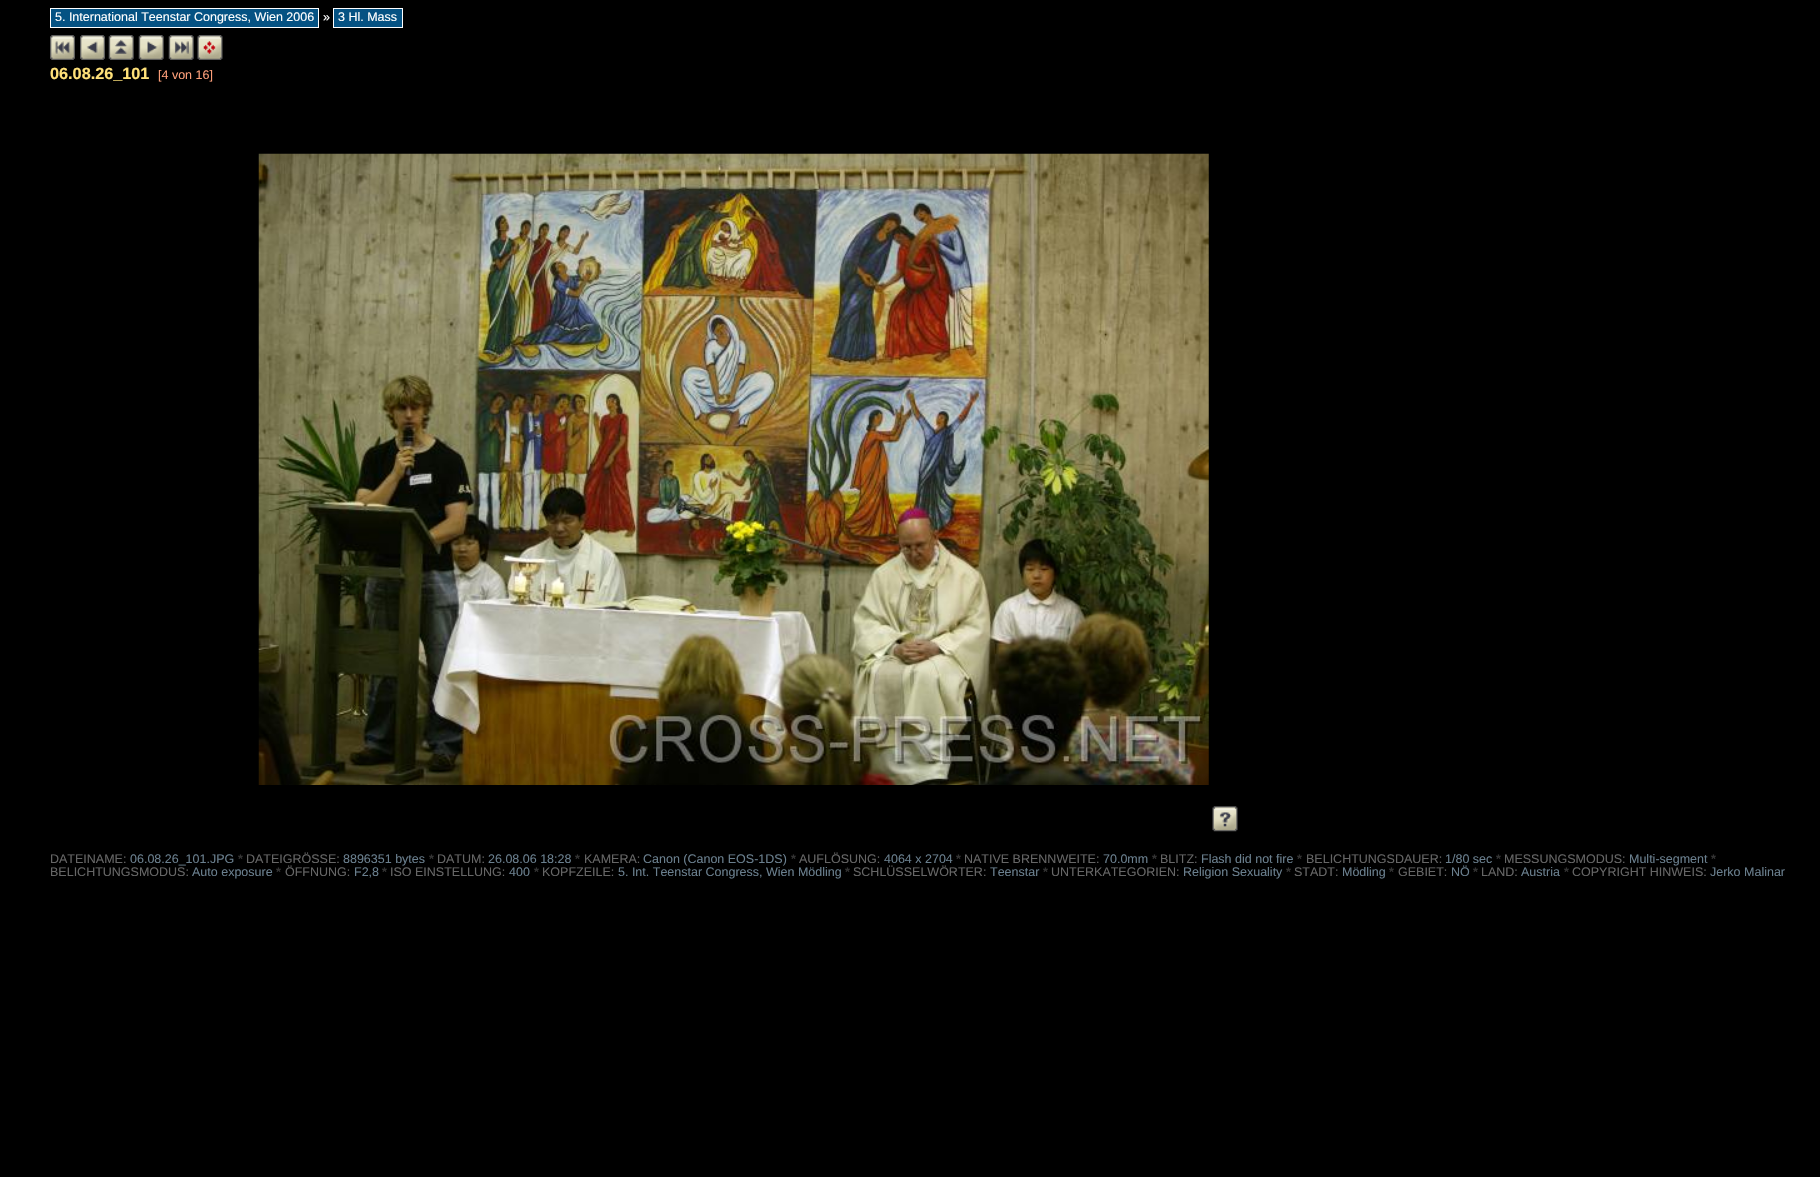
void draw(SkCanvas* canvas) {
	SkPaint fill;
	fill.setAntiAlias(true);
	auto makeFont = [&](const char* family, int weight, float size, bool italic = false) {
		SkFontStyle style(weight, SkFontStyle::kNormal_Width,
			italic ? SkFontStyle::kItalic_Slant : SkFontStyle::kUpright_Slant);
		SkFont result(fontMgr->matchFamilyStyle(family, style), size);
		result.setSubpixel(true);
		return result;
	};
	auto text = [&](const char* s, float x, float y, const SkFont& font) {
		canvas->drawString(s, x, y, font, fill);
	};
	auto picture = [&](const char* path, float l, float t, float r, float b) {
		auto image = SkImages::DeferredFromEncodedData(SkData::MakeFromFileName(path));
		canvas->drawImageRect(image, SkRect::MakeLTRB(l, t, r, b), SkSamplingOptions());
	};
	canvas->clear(0xFF000000);
	fill.setColor(0xFF055283);
	canvas->drawRect(SkRect::MakeLTRB(50.5f, 8.5f, 318.5f, 27.5f), fill);
	fill.setStyle(SkPaint::kStroke_Style);
	fill.setStrokeWidth(1);
	fill.setColor(0xFFFFFFFF);
	canvas->drawRect(SkRect::MakeLTRB(50.5f, 8.5f, 318.5f, 27.5f), fill);
	fill.setStyle(SkPaint::kFill_Style);
	fill.setColor(0xFF055283);
	canvas->drawRect(SkRect::MakeLTRB(333.5f, 8.5f, 402.5f, 27.5f), fill);
	fill.setStyle(SkPaint::kStroke_Style);
	fill.setColor(0xFFFFFFFF);
	canvas->drawRect(SkRect::MakeLTRB(333.5f, 8.5f, 402.5f, 27.5f), fill);
	picture("image0.png", 50, 35, 75, 60);
	picture("image1.png", 80, 35, 105, 60);
	picture("image2.png", 108, 35, 134, 60);
	picture("image3.png", 138, 35, 164, 60);
	picture("image4.png", 168, 35, 194, 60);
	picture("image5.png", 197, 35, 223, 60);
	picture("image6.png", 258, 153, 1209, 785);
	picture("image7.png", 1212, 806, 1238, 832);
	auto font1 = makeFont("Liberation Sans", 400, 12.5f);
	fill.setStyle(SkPaint::kFill_Style);
	text("5. International Teenstar Congress, Wien 2006", 55, 21, font1);
	text("»", 323, 21, font1);
	text("3 Hl. Mass", 338, 21, font1);
	auto font2 = makeFont("Liberation Sans", 700, 16.25f);
	fill.setColor(0xFFFFE179);
	text("06.08.26_101", 50, 79, font2);
	fill.setColor(0xFFFFA07A);
	text("[4 von 16]", 158, 79, font1);
	fill.setColor(0xFF666666);
	text("DATEINAME:", 50, 863, font1);
	fill.setColor(0xFF6A7F8E);
	text("06.08.26_101.JPG", 130, 863, font1);
	auto font3 = makeFont("Liberation Sans", 700, 12.5f);
	fill.setColor(0xFF333333);
	text("*", 238, 863, font3);
	fill.setColor(0xFF666666);
	text("DATEIGRÖSSE:", 246, 863, font1);
	fill.setColor(0xFF6A7F8E);
	text("8896351 bytes", 343, 863, font1);
	fill.setColor(0xFF333333);
	text("*", 429, 863, font3);
	fill.setColor(0xFF666666);
	text("DATUM:", 437, 863, font1);
	fill.setColor(0xFF6A7F8E);
	text("26.08.06 18:28", 488, 863, font1);
	fill.setColor(0xFF333333);
	text("*", 575, 863, font3);
	fill.setColor(0xFF666666);
	text("KAMERA:", 584, 863, font1);
	fill.setColor(0xFF6A7F8E);
	text("Canon (Canon EOS-1DS)", 643, 863, font1);
	fill.setColor(0xFF333333);
	text("*", 791, 863, font3);
	fill.setColor(0xFF666666);
	text("AUFLÖSUNG:", 799, 863, font1);
	fill.setColor(0xFF6A7F8E);
	text("4064 x 2704", 884, 863, font1);
	fill.setColor(0xFF333333);
	text("*", 956, 863, font3);
	fill.setColor(0xFF666666);
	text("NATIVE BRENNWEITE:", 964, 863, font1);
	fill.setColor(0xFF6A7F8E);
	text("70.0mm", 1103, 863, font1);
	fill.setColor(0xFF333333);
	text("*", 1152, 863, font3);
	fill.setColor(0xFF666666);
	text("BLITZ:", 1160, 863, font1);
	fill.setColor(0xFF6A7F8E);
	text("Flash did not fire", 1201, 863, font1);
	fill.setColor(0xFF333333);
	text("*", 1297, 863, font3);
	fill.setColor(0xFF666666);
	text("BELICHTUNGSDAUER:", 1306, 863, font1);
	fill.setColor(0xFF6A7F8E);
	text("1/80 sec", 1445, 863, font1);
	fill.setColor(0xFF333333);
	text("*", 1496, 863, font3);
	fill.setColor(0xFF666666);
	text("MESSUNGSMODUS:", 1504, 863, font1);
	fill.setColor(0xFF6A7F8E);
	text("Multi-segment", 1629, 863, font1);
	fill.setColor(0xFF333333);
	text("*", 1711, 863, font3);
	fill.setColor(0xFF666666);
	text("BELICHTUNGSMODUS:", 50, 876, font1);
	fill.setColor(0xFF6A7F8E);
	text("Auto exposure", 192, 876, font1);
	fill.setColor(0xFF333333);
	text("*", 276, 876, font3);
	fill.setColor(0xFF666666);
	text("ÖFFNUNG:", 285, 876, font1);
	fill.setColor(0xFF6A7F8E);
	text("F2,8", 354, 876, font1);
	fill.setColor(0xFF333333);
	text("*", 382, 876, font3);
	fill.setColor(0xFF666666);
	text("ISO EINSTELLUNG:", 390, 876, font1);
	fill.setColor(0xFF6A7F8E);
	text("400", 509, 876, font1);
	fill.setColor(0xFF333333);
	text("*", 534, 876, font3);
	fill.setColor(0xFF666666);
	text("KOPFZEILE:", 542, 876, font1);
	fill.setColor(0xFF6A7F8E);
	text("5. Int. Teenstar Congress, Wien Mödling", 618, 876, font1);
	fill.setColor(0xFF333333);
	text("*", 845, 876, font3);
	fill.setColor(0xFF666666);
	text("SCHLÜSSELWÖRTER:", 853, 876, font1);
	fill.setColor(0xFF6A7F8E);
	text("Teenstar", 990, 876, font1);
	fill.setColor(0xFF333333);
	text("*", 1043, 876, font3);
	fill.setColor(0xFF666666);
	text("UNTERKATEGORIEN:", 1051, 876, font1);
	fill.setColor(0xFF6A7F8E);
	text("Religion Sexuality", 1183, 876, font1);
	fill.setColor(0xFF333333);
	text("*", 1286, 876, font3);
	fill.setColor(0xFF666666);
	text("STADT:", 1294, 876, font1);
	fill.setColor(0xFF6A7F8E);
	text("Mödling", 1342, 876, font1);
	fill.setColor(0xFF333333);
	text("*", 1389, 876, font3);
	fill.setColor(0xFF666666);
	text("GEBIET:", 1398, 876, font1);
	fill.setColor(0xFF6A7F8E);
	text("NÖ", 1451, 876, font1);
	fill.setColor(0xFF333333);
	text("*", 1473, 876, font3);
	fill.setColor(0xFF666666);
	text("LAND:", 1481, 876, font1);
	fill.setColor(0xFF6A7F8E);
	text("Austria", 1521, 876, font1);
	fill.setColor(0xFF333333);
	text("*", 1564, 876, font3);
	fill.setColor(0xFF666666);
	text("COPYRIGHT HINWEIS:", 1572, 876, font1);
	fill.setColor(0xFF6A7F8E);
	text("Jerko Malinar", 1710, 876, font1);
}
